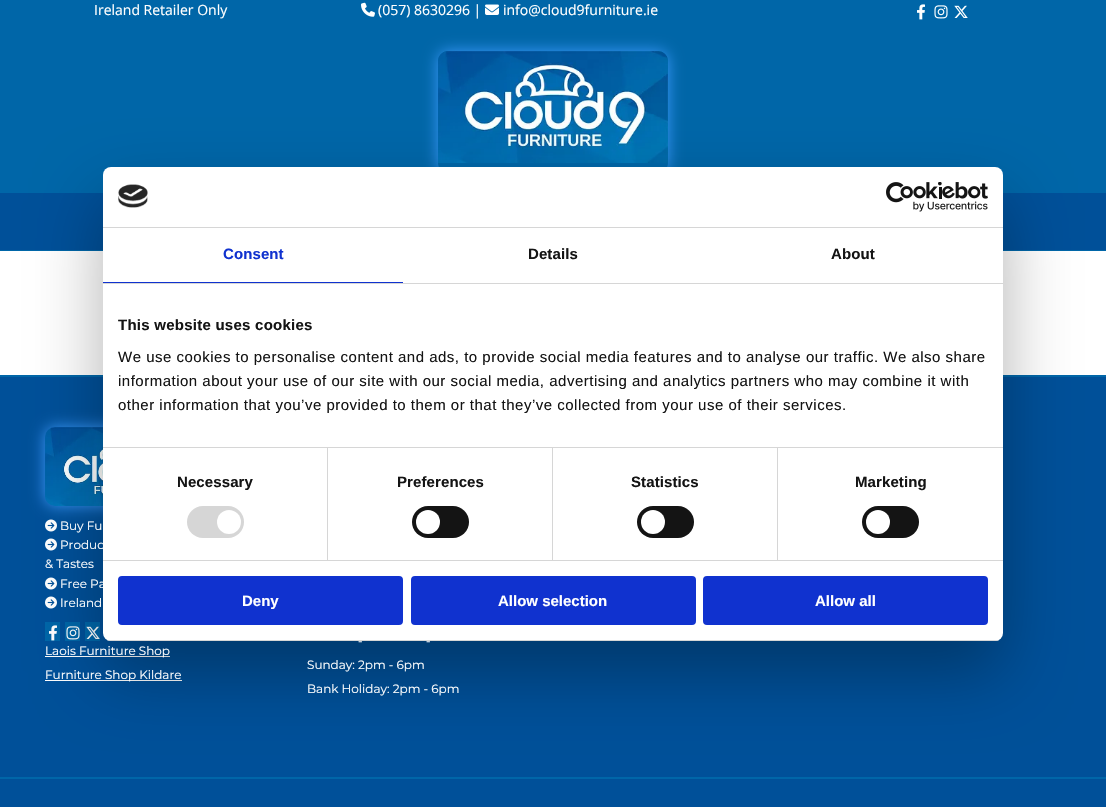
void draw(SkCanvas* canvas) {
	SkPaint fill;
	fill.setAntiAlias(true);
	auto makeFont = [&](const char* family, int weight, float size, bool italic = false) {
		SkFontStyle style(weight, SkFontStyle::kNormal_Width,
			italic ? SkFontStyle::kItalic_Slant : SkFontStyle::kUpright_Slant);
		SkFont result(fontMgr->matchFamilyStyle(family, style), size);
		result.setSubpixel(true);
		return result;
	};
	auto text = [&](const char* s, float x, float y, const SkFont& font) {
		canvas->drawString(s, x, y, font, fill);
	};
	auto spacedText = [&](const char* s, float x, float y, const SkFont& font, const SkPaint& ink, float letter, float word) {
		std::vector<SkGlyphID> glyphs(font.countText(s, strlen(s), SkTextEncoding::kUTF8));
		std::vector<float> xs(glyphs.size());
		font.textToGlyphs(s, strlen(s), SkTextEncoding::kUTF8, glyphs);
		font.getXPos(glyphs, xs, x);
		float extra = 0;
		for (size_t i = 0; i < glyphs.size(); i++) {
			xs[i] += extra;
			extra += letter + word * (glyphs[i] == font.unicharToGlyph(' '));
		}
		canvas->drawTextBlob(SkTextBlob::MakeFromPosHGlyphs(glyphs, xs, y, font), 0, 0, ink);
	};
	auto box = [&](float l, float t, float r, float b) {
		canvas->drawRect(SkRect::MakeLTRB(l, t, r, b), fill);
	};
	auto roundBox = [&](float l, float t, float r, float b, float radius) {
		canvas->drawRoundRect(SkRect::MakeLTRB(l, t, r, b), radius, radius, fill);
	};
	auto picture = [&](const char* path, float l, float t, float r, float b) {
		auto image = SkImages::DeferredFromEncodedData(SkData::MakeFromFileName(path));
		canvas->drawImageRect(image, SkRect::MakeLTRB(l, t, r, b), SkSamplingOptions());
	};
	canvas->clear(0xFFFFFFFF);
	fill.setColor(0xFF0066A8);
	box(0, 31, 1106, 193);
	canvas->save();
	canvas->clipPath(SkPathBuilder(SkPathFillType::kEvenOdd).moveTo(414, 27).lineTo(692, 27).lineTo(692, 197).lineTo(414, 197).close().moveTo(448, 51).lineTo(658, 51).cubicTo(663.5f, 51, 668, 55.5f, 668, 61).lineTo(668, 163).cubicTo(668, 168.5f, 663.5f, 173, 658, 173).lineTo(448, 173).cubicTo(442.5f, 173, 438, 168.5f, 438, 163).lineTo(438, 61).cubicTo(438, 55.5f, 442.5f, 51, 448, 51).close().detach(), true);
	fill.setColor(0xFF3B99FC);
	fill.setMaskFilter(SkMaskFilter::MakeBlur(kNormal_SkBlurStyle, 7.5f));
	canvas->drawRoundRect(SkRect::MakeLTRB(438, 51, 668, 173), 10, 10, fill);
	fill.setMaskFilter(nullptr);
	canvas->restore();
	fill.setColor(0xFF0066A8);
	box(0, 0, 1106, 31);
	picture("image0.png", 361, 2, 375, 17);
	picture("image1.png", 485, 4, 499, 15);
	picture("image2.png", 917, 4, 925, 20);
	picture("image3.png", 934, 5, 948, 19);
	picture("image4.png", 954, 5, 968, 18);
	picture("image5.png", 438, 51, 668, 163);
	fill.setColor(0xFF005099);
	box(0, 193, 1106, 250);
	fill.setColor(0xFF0066A8);
	box(0, 250, 1106, 251);
	fill.setColor(0xFF005099);
	box(0, 377, 1106, 777);
	fill.setColor(0xFF0066A8);
	box(0, 375, 1106, 377);
	fill.setColor(0xFF3B99FC);
	fill.setMaskFilter(SkMaskFilter::MakeBlur(kNormal_SkBlurStyle, 7.5f));
	canvas->drawRoundRect(SkRect::MakeLTRB(45, 427, 207, 506), 10, 10, fill);
	fill.setMaskFilter(nullptr);
	picture("image6.png", 45, 427, 103, 506);
	picture("image7.png", 45, 519, 57, 532);
	picture("image8.png", 45, 538, 57, 551);
	picture("image8.png", 45, 577, 57, 590);
	picture("image8.png", 45, 596, 57, 609);
	fill.setColor(0xFF0066A8);
	box(45, 622, 60, 641);
	picture("image2.png", 49, 625, 57, 641);
	box(65, 622, 80, 641);
	picture("image3.png", 66, 626, 80, 640);
	box(85, 622, 100, 641);
	picture("image4.png", 86, 626, 100, 639);
	fill.setColor(0xFFFFFFFF);
	box(45, 656, 170, 657);
	box(45, 680, 182, 681);
	fill.setColor(0xFF005099);
	box(0, 779, 1106, 807);
	fill.setColor(0xFF0066A8);
	box(0, 777, 1106, 779);
	fill.setColor(0x4D000000);
	fill.setMaskFilter(SkMaskFilter::MakeBlur(kNormal_SkBlurStyle, 34));
	canvas->drawRoundRect(SkRect::MakeLTRB(103, 199, 1003, 673), 8, 8, fill);
	fill.setMaskFilter(nullptr);
	fill.setColor(0xFFFFFFFF);
	roundBox(103, 167, 1003, 641, 8);
	fill.setColor(0xFFD6D6D6);
	box(103, 227, 1003, 228);
	picture("image9.png", 118, 184, 148, 208);
	picture("image10.png", 886, 182, 988, 212);
	box(103, 283, 1003, 284);
	fill.setColor(0xFF1032CF);
	box(103, 282, 403, 283);
	fill.setColor(0xFFD6D6D6);
	box(103, 447, 1003, 448);
	box(103, 560, 1003, 561);
	box(327, 448, 328, 560);
	roundBox(187, 506, 244, 538, 16);
	fill.setColor(0xFFFFFFFF);
	canvas->drawCircle(229, 522, 12, fill);
	fill.setColor(0xFFD6D6D6);
	box(552, 448, 553, 560);
	fill.setColor(0xFF141414);
	roundBox(412, 506, 469, 538, 16);
	fill.setColor(0xFFFFFFFF);
	canvas->drawCircle(428, 522, 12, fill);
	fill.setColor(0xFFD6D6D6);
	box(777, 448, 778, 560);
	fill.setColor(0xFF141414);
	roundBox(637, 506, 694, 538, 16);
	fill.setColor(0xFFFFFFFF);
	canvas->drawCircle(653, 522, 12, fill);
	fill.setColor(0xFF141414);
	roundBox(862, 506, 919, 538, 16);
	fill.setColor(0xFFFFFFFF);
	canvas->drawCircle(878, 522, 12, fill);
	canvas->save();
	canvas->clipPath(SkPathBuilder().moveTo(111, 167).lineTo(995, 167).cubicTo(999.5f, 167, 1003, 170.5f, 1003, 175).lineTo(1003, 633).cubicTo(1003, 637.5f, 999.5f, 641, 995, 641).lineTo(111, 641).cubicTo(106.5f, 641, 103, 637.5f, 103, 633).lineTo(103, 175).cubicTo(103, 170.5f, 106.5f, 167, 111, 167).close().detach(), true);
	fill.setColor(0xFFD6D6D6);
	box(103, 640, 1003, 641);
	canvas->restore();
	fill.setColor(0xFF1032CF);
	canvas->drawRoundRect(SkRect::MakeLTRB(119, 577, 402, 624), 3, 3, fill);
	fill.setStyle(SkPaint::kStroke_Style);
	fill.setStrokeWidth(2);
	canvas->drawRoundRect(SkRect::MakeLTRB(119, 577, 402, 624), 3, 3, fill);
	fill.setStyle(SkPaint::kFill_Style);
	canvas->drawRoundRect(SkRect::MakeLTRB(412, 577, 695, 624), 3, 3, fill);
	fill.setStyle(SkPaint::kStroke_Style);
	canvas->drawRoundRect(SkRect::MakeLTRB(412, 577, 695, 624), 3, 3, fill);
	fill.setStyle(SkPaint::kFill_Style);
	canvas->drawRoundRect(SkRect::MakeLTRB(704, 577, 987, 624), 3, 3, fill);
	fill.setStyle(SkPaint::kStroke_Style);
	canvas->drawRoundRect(SkRect::MakeLTRB(704, 577, 987, 624), 3, 3, fill);
	auto font1 = makeFont("Open Sans", 400, 14);
	fill.setStyle(SkPaint::kFill_Style);
	fill.setColor(0xFFFFFFFF);
	text("Ireland Retailer Only", 94, 15, font1);
	text("(057) 8630296 |", 378, 15, font1);
	text("info@cloud9furniture.ie", 503, 15, font1);
	auto font2 = makeFont("Montserrat", 400, 12);
	text("Buy Fu", 60, 530, font2);
	text("Produc", 60, 549, font2);
	text("& Tastes", 45, 568, font2);
	text("Free Pa", 60, 588, font2);
	text("Ireland", 60, 607, font2);
	text("Laois Furniture Shop", 45, 655, font2);
	text("Furniture Shop Kildare", 45, 679, font2);
	text("-", 358, 645, font2);
	text("-", 426, 645, font2);
	text("Sunday: 2pm - 6pm", 307, 669, font2);
	text("Bank Holiday: 2pm - 6pm", 307, 693, font2);
	auto font3 = makeFont("Liberation Sans", 700, 15);
	fill.setColor(0xFF1032CF);
	spacedText("Consent", 223, 259, font3, fill, 0.1f, 0);
	fill.setColor(0xFF141414);
	spacedText("Details", 528, 259, font3, fill, 0.1f, 0);
	spacedText("About", 831, 259, font3, fill, 0.1f, 0);
	spacedText("This website uses cookies", 118, 330, font3, fill, 0.25f, 0);
	auto font4 = makeFont("Liberation Sans", 400, 15);
	spacedText("We use cookies to personalise content and ads, to provide social media features and to analyse our traffic. We also share", 118, 362, font4, fill, 0.5f, 0);
	spacedText("information about your use of our site with our social media, advertising and analytics partners who may combine it with", 118, 386, font4, fill, 0.5f, 0);
	spacedText("other information that you’ve provided to them or that they’ve collected from your use of their services.", 118, 410, font4, fill, 0.5f, 0);
	spacedText("Necessary", 177, 487, font3, fill, 0.1f, 0);
	spacedText("Preferences", 397, 487, font3, fill, 0.1f, 0);
	spacedText("Statistics", 631, 487, font3, fill, 0.1f, 0);
	spacedText("Marketing", 855, 487, font3, fill, 0.1f, 0);
	fill.setColor(0xFFFFFFFF);
	text("Deny", 242, 606, font3);
	text("Allow selection", 498, 606, font3);
	text("Allow all", 815, 606, font3);
}
